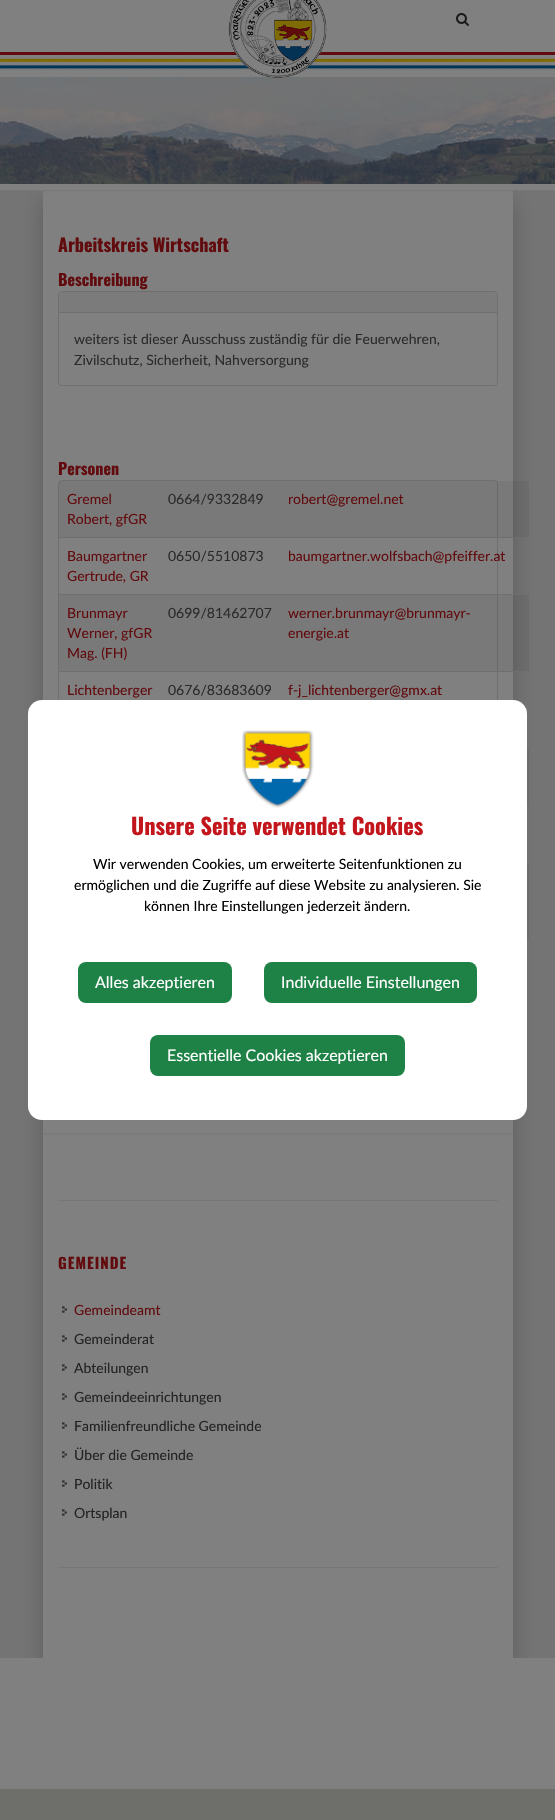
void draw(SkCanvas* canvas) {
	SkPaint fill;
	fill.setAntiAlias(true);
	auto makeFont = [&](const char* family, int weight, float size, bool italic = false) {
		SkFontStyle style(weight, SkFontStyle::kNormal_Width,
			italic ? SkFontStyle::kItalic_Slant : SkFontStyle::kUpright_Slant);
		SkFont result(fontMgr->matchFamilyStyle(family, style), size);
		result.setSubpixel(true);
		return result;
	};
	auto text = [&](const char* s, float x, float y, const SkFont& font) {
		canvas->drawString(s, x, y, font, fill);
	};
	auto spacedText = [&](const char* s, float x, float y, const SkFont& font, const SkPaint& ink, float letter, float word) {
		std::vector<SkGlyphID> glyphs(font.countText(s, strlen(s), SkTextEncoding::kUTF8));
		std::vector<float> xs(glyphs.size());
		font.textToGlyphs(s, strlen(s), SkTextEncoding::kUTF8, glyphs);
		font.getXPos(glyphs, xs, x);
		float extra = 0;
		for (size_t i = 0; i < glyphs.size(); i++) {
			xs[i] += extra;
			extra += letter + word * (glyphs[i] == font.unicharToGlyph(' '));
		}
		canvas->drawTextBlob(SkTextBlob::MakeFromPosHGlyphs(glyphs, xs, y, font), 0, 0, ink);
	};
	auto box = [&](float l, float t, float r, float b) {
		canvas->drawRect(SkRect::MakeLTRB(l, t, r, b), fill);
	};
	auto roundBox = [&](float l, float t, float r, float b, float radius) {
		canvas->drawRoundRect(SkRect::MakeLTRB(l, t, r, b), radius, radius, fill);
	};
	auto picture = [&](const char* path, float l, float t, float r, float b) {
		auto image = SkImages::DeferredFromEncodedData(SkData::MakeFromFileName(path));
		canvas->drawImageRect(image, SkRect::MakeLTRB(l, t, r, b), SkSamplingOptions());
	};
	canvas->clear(0xFF6E6F6B);
	fill.setColor(0xFF808080);
	box(0, 0, 555, 1789);
	fill.setColor(0xFF7B7B7B);
	box(0, 69, 555, 70);
	picture("image0.png", 0, 52, 555, 69);
	picture("image3.png", 0, 77, 555, 184);
	picture("image1.png", 228, 0, 327, 78);
	picture("image2.png", 456, 13, 469, 26);
	fill.setColor(0xFF777777);
	box(0, 190, 555, 191);
	fill.setColor(0xFF747474);
	box(0, 191, 555, 1658);
	canvas->save();
	canvas->clipRect(SkRect::MakeLTRB(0, 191, 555, 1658));
	fill.setColor(0x33000000);
	fill.setMaskFilter(SkMaskFilter::MakeBlur(kNormal_SkBlurStyle, 10));
	canvas->drawRect(SkRect::MakeLTRB(43, 201, 513, 1668), fill);
	fill.setMaskFilter(nullptr);
	canvas->restore();
	fill.setColor(0xFF808080);
	box(43, 191, 513, 1658);
	fill.setColor(0xFF777777);
	box(58, 1200, 498, 1201);
	fill.setColor(0xFF7B7B7B);
	box(43, 1133, 513, 1135);
	fill.setStyle(SkPaint::kStroke_Style);
	fill.setStrokeWidth(1);
	fill.setColor(0xFF6F6F6F);
	canvas->drawRoundRect(SkRect::MakeLTRB(58.5f, 291.5f, 497.5f, 385.5f), 3.5f, 3.5f, fill);
	fill.setStyle(SkPaint::kFill_Style);
	fill.setColor(0xFF7B7B7B);
	canvas->drawPath(SkPathBuilder().moveTo(62, 292).lineTo(494, 292).cubicTo(495.5f, 292, 497, 293.5f, 497, 295).lineTo(497, 313).lineTo(59, 313).lineTo(59, 295).cubicTo(59, 293.5f, 60.5f, 292, 62, 292).close().detach(), fill);
	fill.setColor(0xFF6F6F6F);
	box(59, 312, 497, 313);
	fill.setStyle(SkPaint::kStroke_Style);
	canvas->drawRoundRect(SkRect::MakeLTRB(58.5f, 480.5f, 497.5f, 1016.5f), 3.5f, 3.5f, fill);
	fill.setStyle(SkPaint::kFill_Style);
	fill.setColor(0x0D000000);
	box(59, 481, 529, 537);
	fill.setColor(0xFF6F6F6F);
	box(58, 537, 530, 538);
	fill.setColor(0x0D000000);
	box(59, 595, 529, 671);
	fill.setColor(0xFF6F6F6F);
	box(58, 594, 530, 595);
	box(58, 671, 530, 672);
	fill.setColor(0x0D000000);
	box(527, 749, 529, 805);
	fill.setColor(0xFF6F6F6F);
	box(527, 748, 530, 749);
	box(527, 805, 530, 806);
	fill.setColor(0x0D000000);
	box(527, 863, 529, 939);
	fill.setColor(0xFF6F6F6F);
	box(527, 862, 530, 863);
	box(527, 939, 530, 940);
	fill.setColor(0xFF777777);
	box(58, 1567, 498, 1568);
	picture("image4.png", 62, 1306, 67, 1313);
	picture("image4.png", 62, 1335, 67, 1342);
	picture("image4.png", 62, 1364, 67, 1371);
	picture("image4.png", 62, 1393, 67, 1400);
	picture("image4.png", 62, 1422, 67, 1429);
	picture("image4.png", 62, 1451, 67, 1458);
	picture("image4.png", 62, 1480, 67, 1487);
	picture("image4.png", 62, 1509, 67, 1516);
	fill.setColor(0xFFFFFFFF);
	roundBox(28, 700, 527, 1120, 14);
	picture("image5.png", 242, 730, 314, 808);
	fill.setColor(0xFF1E8246);
	roundBox(78, 962, 232, 1003, 8);
	roundBox(264, 962, 477, 1003, 8);
	roundBox(150, 1035, 405, 1076, 8);
	auto font1 = makeFont("Oswald", 700, 18);
	fill.setColor(0xFF620B0E);
	text("Arbeitskreis Wirtschaft", 58, 252, font1);
	auto font2 = makeFont("Oswald", 700, 16);
	text("Beschreibung", 58, 286, font2);
	auto font3 = makeFont("Lato", 400, 14);
	fill.setColor(0xFF2B2B2B);
	text("weiters ist dieser Ausschuss zuständig für die Feuerwehren,", 74, 344, font3);
	text("Zivilschutz, Sicherheit, Nahversorgung", 74, 365, font3);
	fill.setColor(0xFF620B0E);
	text("Personen", 58, 475, font2);
	text("Gremel", 67, 504, font3);
	text("Robert, gfGR", 67, 524, font3);
	fill.setColor(0xFF2B2B2B);
	text("0664/9332849", 168, 504, font3);
	fill.setColor(0xFF620B0E);
	text("robert@gremel.net", 288, 504, font3);
	text("Baumgartner", 67, 561, font3);
	text("Gertrude, GR", 67, 581, font3);
	fill.setColor(0xFF2B2B2B);
	text("0650/5510873", 168, 561, font3);
	fill.setColor(0xFF620B0E);
	text("baumgartner.wolfsbach@pfeiffer.at", 288, 561, font3);
	text("Brunmayr", 67, 618, font3);
	text("Werner, gfGR", 67, 638, font3);
	text("Mag. (FH)", 67, 658, font3);
	fill.setColor(0xFF2B2B2B);
	text("0699/81462707", 168, 618, font3);
	fill.setColor(0xFF620B0E);
	text("werner.brunmayr@brunmayr-", 288, 618, font3);
	text("energie.at", 288, 638, font3);
	text("Lichtenberger", 67, 695, font3);
	fill.setColor(0xFF2B2B2B);
	text("0676/83683609", 168, 695, font3);
	fill.setColor(0xFF620B0E);
	text("f-j_lichtenberger@gmx.at", 288, 695, font3);
	auto font4 = makeFont("Oswald", 700, 15);
	spacedText("GEMEINDE", 58, 1269, font4, fill, 1, 0);
	text("Gemeindeamt", 74, 1315, font3);
	fill.setColor(0xFF222222);
	text("Gemeinderat", 74, 1344, font3);
	text("Abteilungen", 74, 1373, font3);
	text("Gemeindeeinrichtungen", 74, 1402, font3);
	text("Familienfreundliche Gemeinde", 74, 1431, font3);
	text("Über die Gemeinde", 74, 1460, font3);
	text("Politik", 74, 1489, font3);
	text("Ortsplan", 74, 1518, font3);
	auto font5 = makeFont("Oswald", 700, 22.4f);
	fill.setColor(0xFFC3161C);
	text("Unsere Seite verwendet Cookies", 131, 835, font5);
	fill.setColor(0xFF000000);
	text("Wir verwenden Cookies, um erweiterte Seitenfunktionen zu", 93, 869, font3);
	text("ermöglichen und die Zugriffe auf diese Website zu analysieren. Sie", 74, 890, font3);
	text("können Ihre Einstellungen jederzeit ändern.", 144, 911, font3);
	auto font6 = makeFont("Lato", 400, 16);
	fill.setColor(0xFFFFFFFF);
	text("Alles akzeptieren", 95, 988, font6);
	text("Individuelle Einstellungen", 281, 988, font6);
	text("Essentielle Cookies akzeptieren", 167, 1061, font6);
}
